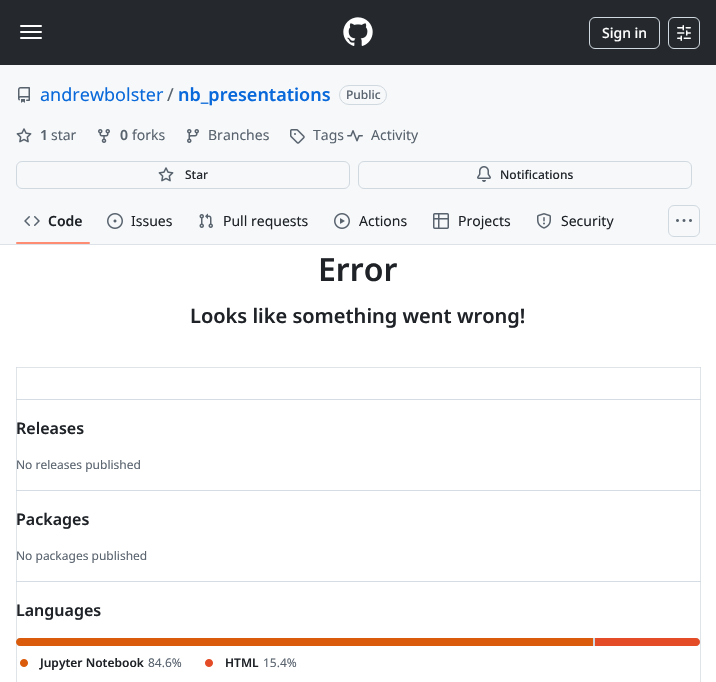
void draw(SkCanvas* canvas) {
	SkPaint fill;
	fill.setAntiAlias(true);
	auto makeFont = [&](const char* family, int weight, float size, bool italic = false) {
		SkFontStyle style(weight, SkFontStyle::kNormal_Width,
			italic ? SkFontStyle::kItalic_Slant : SkFontStyle::kUpright_Slant);
		SkFont result(fontMgr->matchFamilyStyle(family, style), size);
		result.setSubpixel(true);
		return result;
	};
	auto text = [&](const char* s, float x, float y, const SkFont& font) {
		canvas->drawString(s, x, y, font, fill);
	};
	auto box = [&](float l, float t, float r, float b) {
		canvas->drawRect(SkRect::MakeLTRB(l, t, r, b), fill);
	};
	auto roundBox = [&](float l, float t, float r, float b, float radius) {
		canvas->drawRoundRect(SkRect::MakeLTRB(l, t, r, b), radius, radius, fill);
	};
	auto picture = [&](const char* path, float l, float t, float r, float b) {
		auto image = SkImages::DeferredFromEncodedData(SkData::MakeFromFileName(path));
		canvas->drawImageRect(image, SkRect::MakeLTRB(l, t, r, b), SkSamplingOptions());
	};
	canvas->clear(0xFFFFFFFF);
	fill.setColor(0xFFDFE4E9);
	box(16, 367, 17, 682);
	box(700, 367, 701, 682);
	fill.setColor(0xFF25292E);
	box(0, 0, 716, 65);
	fill.setColor(0xFFFFFFFF);
	roundBox(20, 25, 42, 27, 1);
	roundBox(20, 31, 42, 33, 1);
	roundBox(20, 37, 42, 39, 1);
	picture("image0.png", 343, 17, 373, 46);
	fill.setStyle(SkPaint::kStroke_Style);
	fill.setStrokeWidth(1);
	fill.setColor(0xFFD1D9E0);
	canvas->drawRoundRect(SkRect::MakeLTRB(589.5f, 17.5f, 659.5f, 48.5f), 5.5f, 5.5f, fill);
	canvas->drawRoundRect(SkRect::MakeLTRB(668.5f, 17.5f, 699.5f, 48.5f), 5.5f, 5.5f, fill);
	picture("image1.png", 677, 25, 691, 41);
	fill.setStyle(SkPaint::kFill_Style);
	fill.setColor(0xFFF6F8FA);
	box(0, 65, 716, 244);
	picture("image2.png", 18, 87, 30, 103);
	fill.setStyle(SkPaint::kStroke_Style);
	fill.setColor(0xFFD1D9E0);
	canvas->drawRoundRect(SkRect::MakeLTRB(339.5f, 85.5f, 386.5f, 104.5f), 9.5f, 9.5f, fill);
	picture("image3.png", 16, 128, 32, 143);
	picture("image4.png", 98, 129, 110, 143);
	picture("image5.png", 187, 129, 199, 143);
	picture("image6.png", 290, 129, 305, 144);
	picture("image7.png", 347, 130, 363, 142);
	canvas->drawRoundRect(SkRect::MakeLTRB(16.5f, 161.5f, 349.5f, 188.5f), 5.5f, 5.5f, fill);
	picture("image3.png", 158, 167, 174, 182);
	canvas->drawRoundRect(SkRect::MakeLTRB(358.5f, 161.5f, 691.5f, 188.5f), 5.5f, 5.5f, fill);
	picture("image8.png", 477, 166, 491, 182);
	fill.setStyle(SkPaint::kFill_Style);
	fill.setColor(0xFFDCE2E8);
	box(0, 244, 716, 245);
	picture("image9.png", 24, 216, 40, 226);
	fill.setColor(0xFFFD8C73);
	roundBox(16, 242, 90, 244, 1);
	picture("image10.png", 107, 213, 123, 229);
	picture("image11.png", 199, 213, 213, 228);
	picture("image12.png", 334, 213, 350, 229);
	picture("image13.png", 433, 213, 449, 229);
	picture("image14.png", 537, 213, 551, 229);
	fill.setStyle(SkPaint::kStroke_Style);
	fill.setColor(0xFFD1D9E0);
	canvas->drawRoundRect(SkRect::MakeLTRB(668.5f, 205.5f, 699.5f, 236.5f), 5.5f, 5.5f, fill);
	picture("image15.png", 676, 219, 692, 222);
	fill.setStyle(SkPaint::kFill_Style);
	fill.setColor(0xFFDFE4E9);
	box(16, 367, 701, 368);
	fill.setColor(0xFFD5DCE3);
	box(16, 367, 17, 368);
	box(700, 367, 701, 368);
	box(16, 399, 701, 400);
	fill.setColor(0xFFD1D9E0);
	box(16, 399, 17, 400);
	box(700, 399, 701, 400);
	fill.setColor(0xFFD5DCE3);
	box(16, 490, 701, 491);
	fill.setColor(0xFFD1D9E0);
	box(16, 490, 17, 491);
	box(700, 490, 701, 491);
	fill.setColor(0xFFD5DCE3);
	box(16, 581, 701, 582);
	fill.setColor(0xFFD1D9E0);
	box(16, 581, 17, 582);
	box(700, 581, 701, 582);
	roundBox(16, 638, 700, 646, 4);
	fill.setColor(0xFFDA5B0B);
	canvas->drawPath(SkPathBuilder().moveTo(20, 638).lineTo(593, 638).lineTo(593, 646).lineTo(20, 646).cubicTo(18, 646, 16, 644, 16, 642).cubicTo(16, 640, 18, 638, 20, 638).close().detach(), fill);
	fill.setColor(0xFFE34C26);
	canvas->drawPath(SkPathBuilder().moveTo(595, 638).lineTo(696, 638).cubicTo(698, 638, 700, 640, 700, 642).cubicTo(700, 644, 698, 646, 696, 646).lineTo(595, 646).close().detach(), fill);
	picture("image16.png", 20, 659, 28, 667);
	picture("image17.png", 205, 659, 213, 667);
	auto font1 = makeFont("Noto Sans", 500, 14);
	fill.setColor(0xFFFFFFFF);
	text("Sign in", 602, 38, font1);
	auto font2 = makeFont("Noto Sans", 400, 18);
	fill.setColor(0xFF0969DA);
	text("andrewbolster", 40, 101, font2);
	fill.setColor(0xFF59636E);
	text("/", 167, 101, font2);
	auto font3 = makeFont("Noto Sans", 600, 18);
	fill.setColor(0xFF0969DA);
	text("nb_presentations", 178, 101, font3);
	auto font4 = makeFont("Noto Sans", 500, 12);
	fill.setColor(0xFF59636E);
	text("Public", 346, 99, font4);
	auto font5 = makeFont("Noto Sans", 600, 14);
	text("1", 40, 140, font5);
	auto font6 = makeFont("Noto Sans", 400, 14);
	text("star", 51, 140, font6);
	text("0", 120, 140, font5);
	text("forks", 132, 140, font6);
	text("Branches", 208, 140, font6);
	text("Tags", 313, 140, font6);
	text("Activity", 371, 140, font6);
	fill.setColor(0xFF25292E);
	text("Star", 185, 179, font4);
	text("Notifications", 500, 179, font4);
	fill.setColor(0xFF1F2328);
	text("Code", 48, 226, font5);
	text("Issues", 131, 226, font6);
	text("Pull requests", 223, 226, font6);
	text("Actions", 359, 226, font6);
	text("Projects", 458, 226, font6);
	text("Security", 561, 226, font6);
	auto font7 = makeFont("Noto Sans", 600, 32);
	text("Error", 318, 281, font7);
	auto font8 = makeFont("Noto Sans", 600, 20);
	text("Looks like something went wrong!", 190, 323, font8);
	auto font9 = makeFont("Noto Sans", 600, 16);
	text("Releases", 16, 434, font9);
	auto font10 = makeFont("Noto Sans", 400, 12);
	fill.setColor(0xFF59636E);
	text("No releases published", 16, 469, font10);
	fill.setColor(0xFF1F2328);
	text("Packages", 16, 525, font9);
	fill.setColor(0xFF59636E);
	text("No packages published", 16, 560, font10);
	fill.setColor(0xFF1F2328);
	text("Languages", 16, 616, font9);
	auto font11 = makeFont("Noto Sans", 600, 12);
	text("Jupyter Notebook", 40, 667, font11);
	fill.setColor(0xFF59636E);
	text("84.6%", 148, 667, font10);
	fill.setColor(0xFF1F2328);
	text("HTML", 225, 667, font11);
	fill.setColor(0xFF59636E);
	text("15.4%", 263, 667, font10);
}
